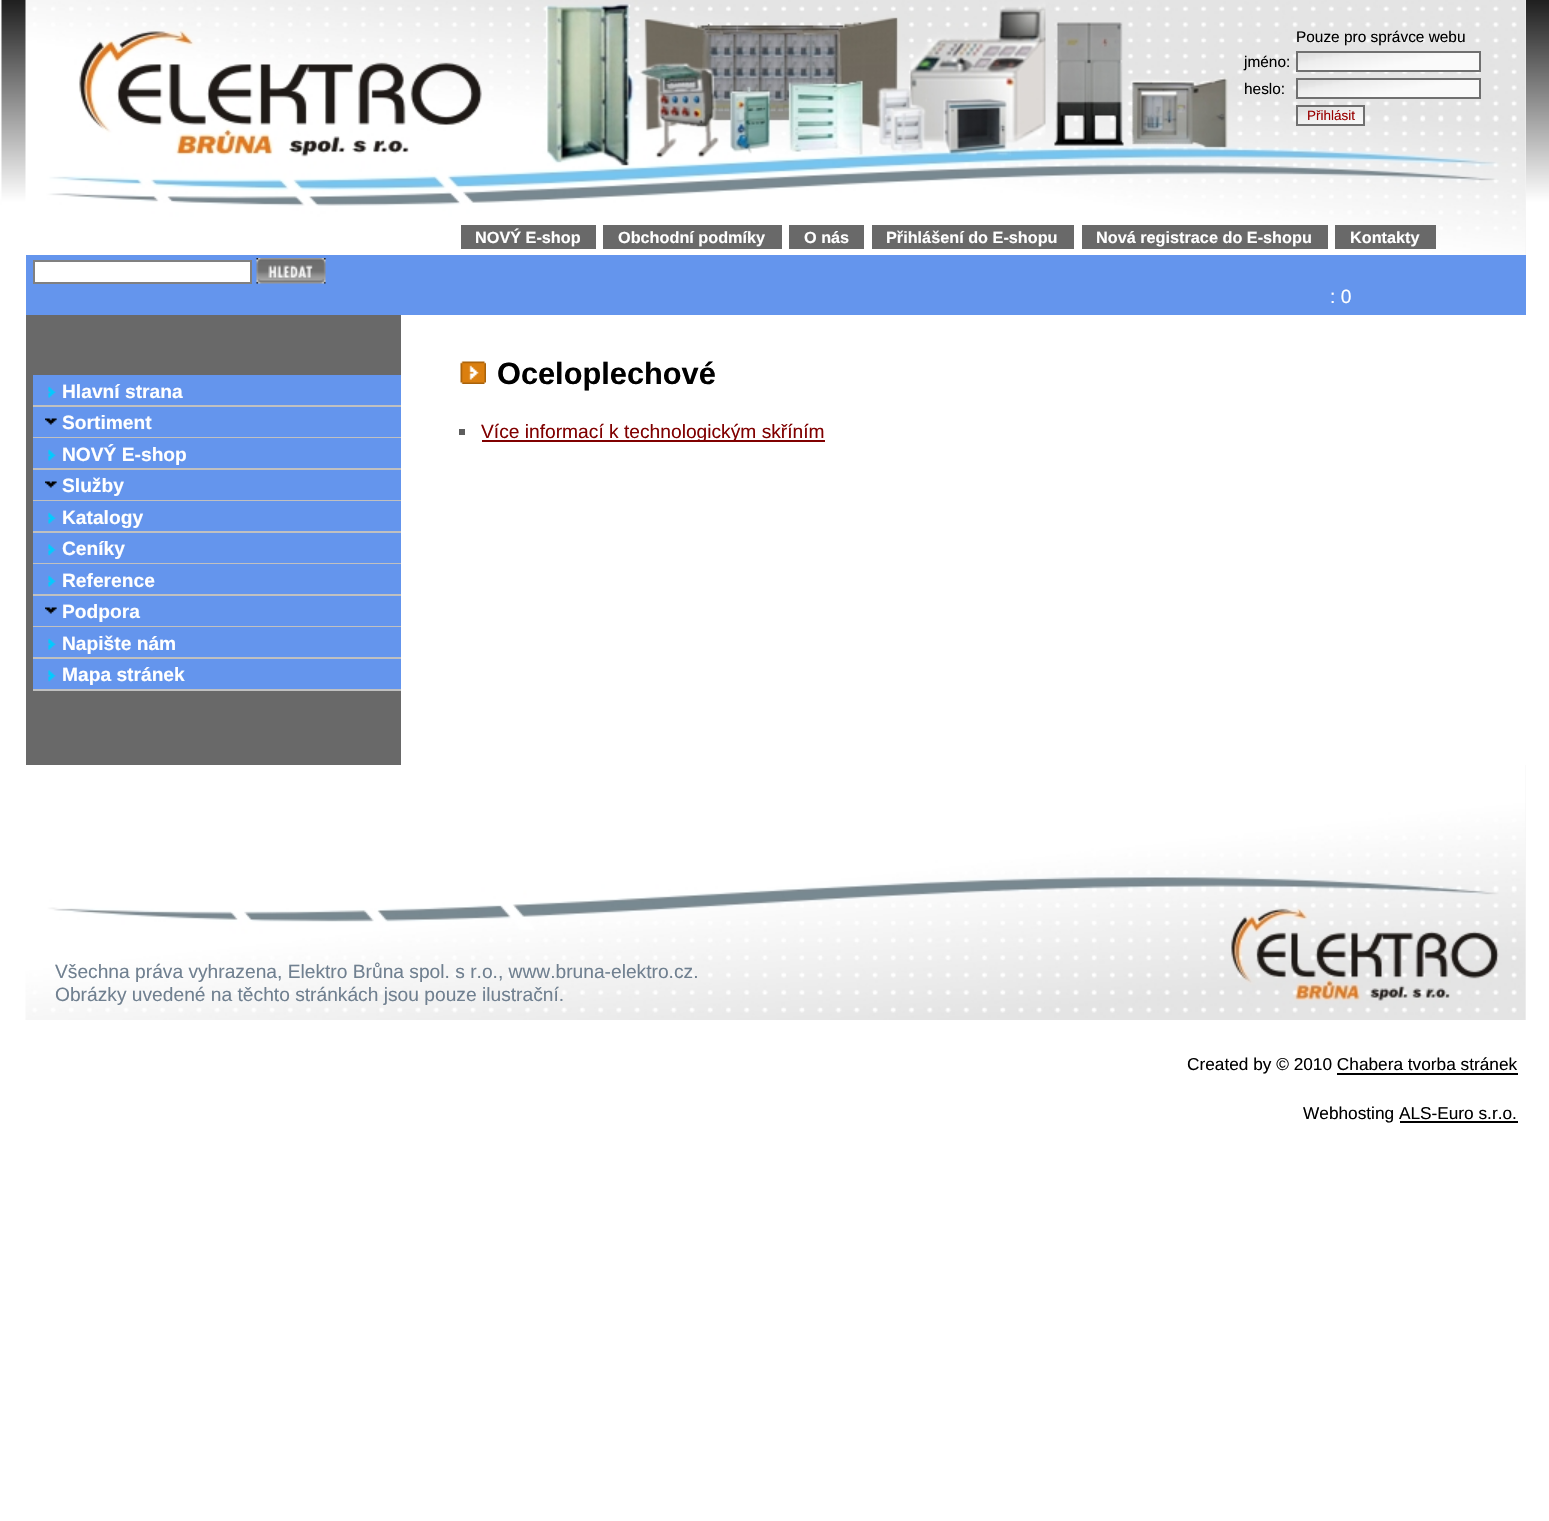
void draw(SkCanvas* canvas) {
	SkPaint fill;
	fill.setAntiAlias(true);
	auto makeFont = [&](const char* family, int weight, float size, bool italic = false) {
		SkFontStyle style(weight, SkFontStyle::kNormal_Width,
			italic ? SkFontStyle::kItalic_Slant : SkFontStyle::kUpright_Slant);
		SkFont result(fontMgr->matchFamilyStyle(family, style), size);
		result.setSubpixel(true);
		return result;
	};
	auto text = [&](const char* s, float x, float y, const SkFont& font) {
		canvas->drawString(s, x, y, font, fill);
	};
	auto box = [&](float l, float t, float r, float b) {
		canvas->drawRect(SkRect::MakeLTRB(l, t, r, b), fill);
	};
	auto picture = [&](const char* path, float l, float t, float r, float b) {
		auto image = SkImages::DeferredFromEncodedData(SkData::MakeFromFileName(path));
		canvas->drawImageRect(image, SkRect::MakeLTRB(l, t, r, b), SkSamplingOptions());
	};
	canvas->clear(0xFFFFFFFF);
	picture("image0.png", 0, 0, 1549, 1521);
	fill.setColor(0xFFF5F5F5);
	box(1525, 0, 1526, 255);
	picture("image1.png", 25, 0, 1526, 255);
	picture("image2.png", 1298, 53, 1479, 70);
	fill.setStyle(SkPaint::kStroke_Style);
	fill.setStrokeWidth(2);
	fill.setColor(0xFF707070);
	canvas->drawRect(SkRect::MakeLTRB(1297, 52, 1480, 71), fill);
	picture("image2.png", 1298, 80, 1479, 97);
	canvas->drawRect(SkRect::MakeLTRB(1297, 79, 1480, 98), fill);
	picture("image3.png", 1298, 107, 1363, 124);
	canvas->drawRect(SkRect::MakeLTRB(1297, 106, 1364, 125), fill);
	fill.setStyle(SkPaint::kFill_Style);
	fill.setColor(0xFF696969);
	box(461, 225, 596, 249);
	box(603, 225, 782, 249);
	box(789, 225, 864, 249);
	box(872, 225, 1074, 249);
	box(1082, 225, 1328, 249);
	box(1335, 225, 1436, 249);
	fill.setColor(0xFF6495ED);
	box(26, 255, 1526, 315);
	fill.setColor(0xFFFFFFFF);
	canvas->drawRect(SkRect::MakeLTRB(34, 261, 251, 283), fill);
	fill.setStyle(SkPaint::kStroke_Style);
	fill.setColor(0xFF808080);
	canvas->drawRect(SkRect::MakeLTRB(34, 261, 251, 283), fill);
	picture("image4.png", 256, 258, 326, 284);
	fill.setStyle(SkPaint::kFill_Style);
	fill.setColor(0xFF696969);
	box(26, 315, 401, 765);
	fill.setColor(0xFF6495ED);
	box(33, 375, 401, 405);
	fill.setColor(0xFFC0C0C0);
	box(33, 405, 401, 407);
	picture("image5.png", 48, 386, 56, 398);
	fill.setColor(0xFF6495ED);
	box(33, 407, 401, 437);
	fill.setColor(0xFFC0C0C0);
	box(33, 437, 401, 438);
	picture("image6.png", 45, 418, 57, 425);
	fill.setColor(0xFF6495ED);
	box(33, 438, 401, 468);
	fill.setColor(0xFFC0C0C0);
	box(33, 468, 401, 470);
	picture("image5.png", 48, 449, 56, 461);
	fill.setColor(0xFF6495ED);
	box(33, 470, 401, 500);
	fill.setColor(0xFFC0C0C0);
	box(33, 500, 401, 501);
	picture("image6.png", 45, 481, 57, 488);
	fill.setColor(0xFF6495ED);
	box(33, 501, 401, 531);
	fill.setColor(0xFFC0C0C0);
	box(33, 531, 401, 533);
	picture("image5.png", 48, 512, 56, 524);
	fill.setColor(0xFF6495ED);
	box(33, 533, 401, 563);
	fill.setColor(0xFFC0C0C0);
	box(33, 563, 401, 564);
	picture("image7.png", 48, 544, 56, 556);
	fill.setColor(0xFF6495ED);
	box(33, 564, 401, 594);
	fill.setColor(0xFFC0C0C0);
	box(33, 594, 401, 596);
	picture("image5.png", 48, 575, 56, 587);
	fill.setColor(0xFF6495ED);
	box(33, 596, 401, 626);
	fill.setColor(0xFFC0C0C0);
	box(33, 626, 401, 627);
	picture("image6.png", 45, 607, 57, 614);
	fill.setColor(0xFF6495ED);
	box(33, 627, 401, 657);
	fill.setColor(0xFFC0C0C0);
	box(33, 657, 401, 659);
	picture("image5.png", 48, 638, 56, 650);
	fill.setColor(0xFF6495ED);
	box(33, 659, 401, 689);
	fill.setColor(0xFFC0C0C0);
	box(33, 689, 401, 691);
	picture("image7.png", 48, 670, 56, 682);
	picture("image8.png", 460, 361, 486, 384);
	fill.setColor(0xFF5D5D5D);
	box(459, 429, 465, 435);
	fill.setColor(0xFF800000);
	box(482, 440, 825, 442);
	fill.setColor(0xFFF5F5F5);
	box(1525, 765, 1526, 1020);
	picture("image9.png", 25, 765, 1526, 1020);
	fill.setColor(0xFF000000);
	box(1337, 1073, 1518, 1075);
	box(1400, 1121, 1518, 1123);
	auto font1 = makeFont("Liberation Sans", 400, 15.4f);
	text("Pouze pro správce webu", 1296, 42, font1);
	text("jméno:", 1244, 67, font1);
	text("heslo:", 1244, 94, font1);
	auto font2 = makeFont("Liberation Sans", 400, 13.5f);
	fill.setColor(0xFF990000);
	text("Přihlásit", 1307, 120, font2);
	auto font3 = makeFont("Liberation Sans", 700, 16.25f);
	fill.setColor(0xFFFFFFFF);
	text("NOVÝ E-shop", 475, 243, font3);
	text("Obchodní podmíky", 618, 243, font3);
	text("O nás", 804, 243, font3);
	text("Přihlášení do E-shopu", 886, 243, font3);
	text("Nová registrace do E-shopu", 1096, 243, font3);
	text("Kontakty", 1350, 243, font3);
	auto font4 = makeFont("Liberation Sans", 400, 19.2f);
	text(": 0", 1330, 303, font4);
	auto font5 = makeFont("Liberation Sans", 700, 19.2f);
	text("Hlavní strana", 62, 398, font5);
	text("Sortiment", 62, 429, font5);
	text("NOVÝ E-shop", 62, 461, font5);
	text("Služby", 62, 492, font5);
	text("Katalogy", 62, 524, font5);
	text("Ceníky", 62, 555, font5);
	text("Reference", 62, 587, font5);
	text("Podpora", 62, 618, font5);
	text("Napište nám", 62, 650, font5);
	text("Mapa stránek", 62, 681, font5);
	auto font6 = makeFont("Liberation Sans", 700, 30.75f);
	fill.setColor(0xFF000000);
	text("Oceloplechové", 497, 384, font6);
	fill.setColor(0xFF800000);
	text("Více informací k technologickým skříním", 481, 438, font4);
	fill.setColor(0xFF708090);
	text("Všechna práva vyhrazena, Elektro Brůna spol. s r.o., www.bruna-elektro.cz.", 55, 978, font4);
	text("Obrázky uvedené na těchto stránkách jsou pouze ilustrační.", 55, 1001, font4);
	auto font7 = makeFont("Liberation Sans", 400, 17.25f);
	fill.setColor(0xFF000000);
	text("Created by © 2010 Chabera tvorba stránek", 1187, 1070, font7);
	text("Webhosting ALS-Euro s.r.o.", 1303, 1119, font7);
}
